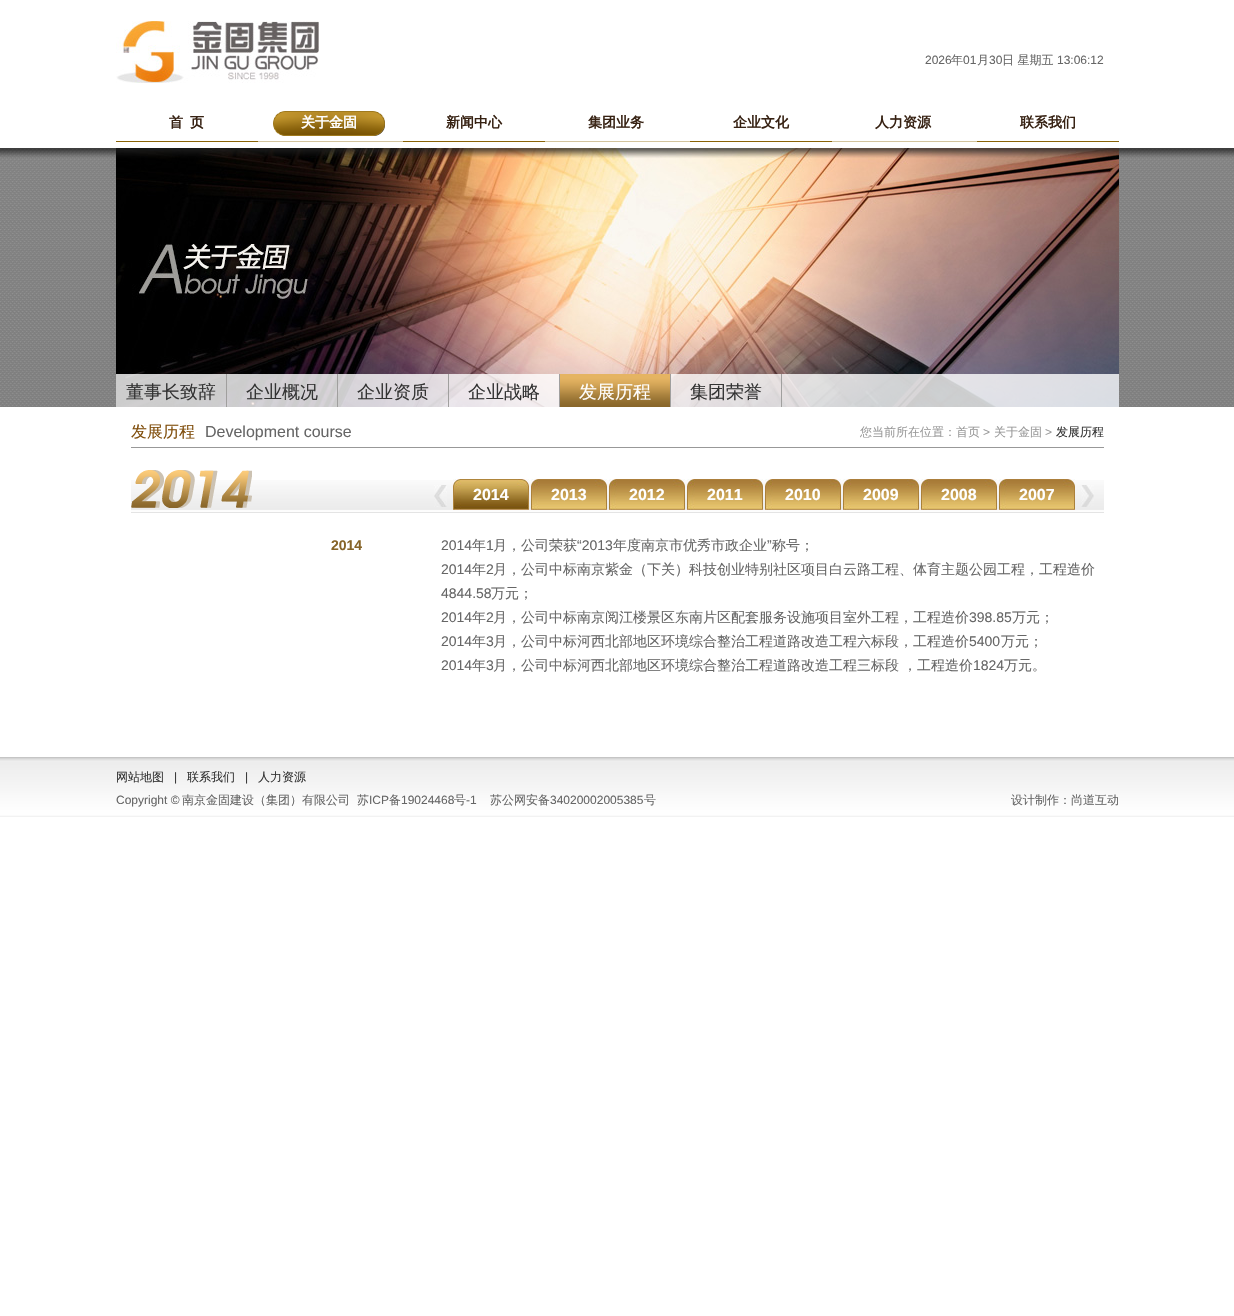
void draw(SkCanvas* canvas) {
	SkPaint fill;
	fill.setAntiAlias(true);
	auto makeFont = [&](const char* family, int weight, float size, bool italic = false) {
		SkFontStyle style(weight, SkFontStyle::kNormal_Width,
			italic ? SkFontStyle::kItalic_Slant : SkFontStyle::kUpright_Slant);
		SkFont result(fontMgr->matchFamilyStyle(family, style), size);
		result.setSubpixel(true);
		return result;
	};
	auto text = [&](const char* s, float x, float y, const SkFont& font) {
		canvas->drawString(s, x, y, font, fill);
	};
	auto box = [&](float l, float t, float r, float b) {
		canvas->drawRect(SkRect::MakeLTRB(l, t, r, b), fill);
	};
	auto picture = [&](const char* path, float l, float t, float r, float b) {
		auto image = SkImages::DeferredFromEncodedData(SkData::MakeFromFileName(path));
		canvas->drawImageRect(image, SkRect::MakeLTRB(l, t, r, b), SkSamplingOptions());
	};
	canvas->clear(0xFFFFFFFF);
	picture("image0.png", 116, 21, 319, 83);
	fill.setColor(0xFF8A6306);
	box(116, 141, 258, 142);
	fill.setColor(0xFFD3C49D);
	box(258, 141, 403, 142);
	picture("image1.png", 273, 111, 385, 136);
	fill.setColor(0xFF8A6306);
	box(403, 141, 545, 142);
	fill.setColor(0xFFD3C49D);
	box(545, 141, 690, 142);
	fill.setColor(0xFF8A6306);
	box(690, 141, 832, 142);
	fill.setColor(0xFFD3C49D);
	box(832, 141, 977, 142);
	fill.setColor(0xFF8A6306);
	box(977, 141, 1119, 142);
	picture("image2.png", 0, 148, 1234, 407);
	picture("image3.png", 116, 148, 1119, 407);
	fill.setColor(0xCCFFFFFF);
	box(116, 374, 1119, 407);
	fill.setColor(0xFFA09F9E);
	box(226, 374, 227, 407);
	box(337, 374, 338, 407);
	box(448, 374, 449, 407);
	box(559, 374, 560, 407);
	picture("image4.png", 560, 374, 670, 407);
	box(670, 374, 671, 407);
	box(781, 374, 782, 407);
	fill.setColor(0xFF989898);
	box(131, 447, 1104, 448);
	picture("image5.png", 131, 480, 1104, 513);
	picture("image6.png", 131, 470, 252, 508);
	picture("image7.png", 434, 485, 447, 507);
	picture("image8.png", 453, 479, 529, 510);
	picture("image9.png", 531, 479, 607, 510);
	picture("image9.png", 609, 479, 685, 510);
	picture("image9.png", 687, 479, 763, 510);
	picture("image9.png", 765, 479, 841, 510);
	picture("image9.png", 843, 479, 919, 510);
	picture("image9.png", 921, 479, 997, 510);
	picture("image9.png", 999, 479, 1075, 510);
	picture("image10.png", 1081, 485, 1094, 507);
	picture("image11.png", 0, 757, 1234, 817);
	auto font1 = makeFont("Liberation Sans", 400, 12);
	fill.setColor(0xFF666666);
	text("2026", 925, 64, font1);
	auto font2 = makeFont("WenQuanYi Zen Hei", 500, 12);
	text("年", 951, 64, font2);
	text("01", 963, 64, font1);
	text("月", 977, 64, font2);
	text("30", 989, 64, font1);
	text("日 星期五", 1002, 64, font2);
	text("13:06:12", 1057, 64, font1);
	auto font3 = makeFont("WenQuanYi Zen Hei", 700, 14);
	fill.setColor(0xFF372213);
	text("首", 169, 127, font3);
	text("页", 190, 127, font3);
	fill.setColor(0xFFFFFFFF);
	text("关于金固", 301, 127, font3);
	fill.setColor(0xFF372213);
	text("新闻中心", 446, 127, font3);
	text("集团业务", 588, 127, font3);
	text("企业文化", 733, 127, font3);
	text("人力资源", 875, 127, font3);
	text("联系我们", 1020, 127, font3);
	auto font4 = makeFont("WenQuanYi Zen Hei", 500, 18);
	fill.setColor(0xFF333333);
	text("董事长致辞", 126, 398, font4);
	text("企业概况", 246, 398, font4);
	text("企业资质", 357, 398, font4);
	text("企业战略", 468, 398, font4);
	fill.setColor(0xFFFFFFFF);
	text("发展历程", 579, 398, font4);
	fill.setColor(0xFF333333);
	text("集团荣誉", 690, 398, font4);
	auto font5 = makeFont("WenQuanYi Zen Hei", 500, 16);
	fill.setColor(0xFF804E0C);
	text("发展历程", 131, 437, font5);
	auto font6 = makeFont("Liberation Sans", 400, 16);
	fill.setColor(0xFF666666);
	text("Development course", 205, 437, font6);
	fill.setColor(0xFF999999);
	text("您当前所在位置：首页", 860, 436, font2);
	text(">", 983, 436, font1);
	text("关于金固", 994, 436, font2);
	text(">", 1045, 436, font1);
	fill.setColor(0xFF333333);
	text("发展历程", 1056, 436, font2);
	auto font7 = makeFont("Liberation Sans", 700, 16);
	fill.setColor(0xFFFFFFFF);
	text("2014", 473, 500, font7);
	text("2013", 551, 500, font7);
	text("2012", 629, 500, font7);
	text("2011", 707, 500, font7);
	text("2010", 785, 500, font7);
	text("2009", 863, 500, font7);
	text("2008", 941, 500, font7);
	text("2007", 1019, 500, font7);
	auto font8 = makeFont("Liberation Sans", 700, 14);
	fill.setColor(0xFF866428);
	text("2014", 331, 550, font8);
	auto font9 = makeFont("Liberation Sans", 400, 14);
	fill.setColor(0xFF666666);
	text("2014", 441, 550, font9);
	auto font10 = makeFont("WenQuanYi Zen Hei", 500, 14);
	text("年", 472, 550, font10);
	text("1", 486, 550, font9);
	text("月，公司荣获", 493, 550, font10);
	text("“2013", 577, 550, font9);
	text("年度南京市优秀市政企业", 613, 550, font10);
	text("”", 767, 550, font9);
	text("称号；", 772, 550, font10);
	text("2014", 441, 574, font9);
	text("年", 472, 574, font10);
	text("2", 486, 574, font9);
	text("月，公司中标南京紫金（下关）科技创业特别社区项目白云路工程、体育主题公园工程，工程造价", 493, 574, font10);
	text("4844.58", 441, 598, font9);
	text("万元；", 491, 598, font10);
	text("2014", 441, 622, font9);
	text("年", 472, 622, font10);
	text("2", 486, 622, font9);
	text("月，公司中标南京阅江楼景区东南片区配套服务设施项目室外工程，工程造价", 493, 622, font10);
	text("398.85", 969, 622, font9);
	text("万元；", 1012, 622, font10);
	text("2014", 441, 646, font9);
	text("年", 472, 646, font10);
	text("3", 486, 646, font9);
	text("月，公司中标河西北部地区环境综合整治工程道路改造工程六标段，工程造价", 493, 646, font10);
	text("5400", 969, 646, font9);
	text("万元；", 1001, 646, font10);
	text("2014", 441, 670, font9);
	text("年", 472, 670, font10);
	text("3", 486, 670, font9);
	text("月，公司中标河西北部地区环境综合整治工程道路改造工程三标段", 493, 670, font10);
	text("，工程造价", 903, 670, font10);
	text("1824", 973, 670, font9);
	text("万元。", 1004, 670, font10);
	fill.setColor(0xFF333333);
	text("网站地图", 116, 781, font2);
	text("|", 174, 781, font1);
	text("联系我们", 187, 781, font2);
	text("|", 245, 781, font1);
	text("人力资源", 258, 781, font2);
	fill.setColor(0xFF666666);
	text("Copyright ©", 116, 804, font1);
	text("南京金固建设（集团）有限公司", 182, 804, font2);
	text("苏", 357, 804, font2);
	text("ICP", 369, 804, font1);
	text("备", 389, 804, font2);
	text("19024468", 401, 804, font1);
	text("号", 454, 804, font2);
	text("-1", 466, 804, font1);
	text("苏公网安备", 490, 804, font2);
	text("34020002005385", 550, 804, font1);
	text("号", 644, 804, font2);
	text("设计制作：尚道互动", 1011, 804, font2);
}
